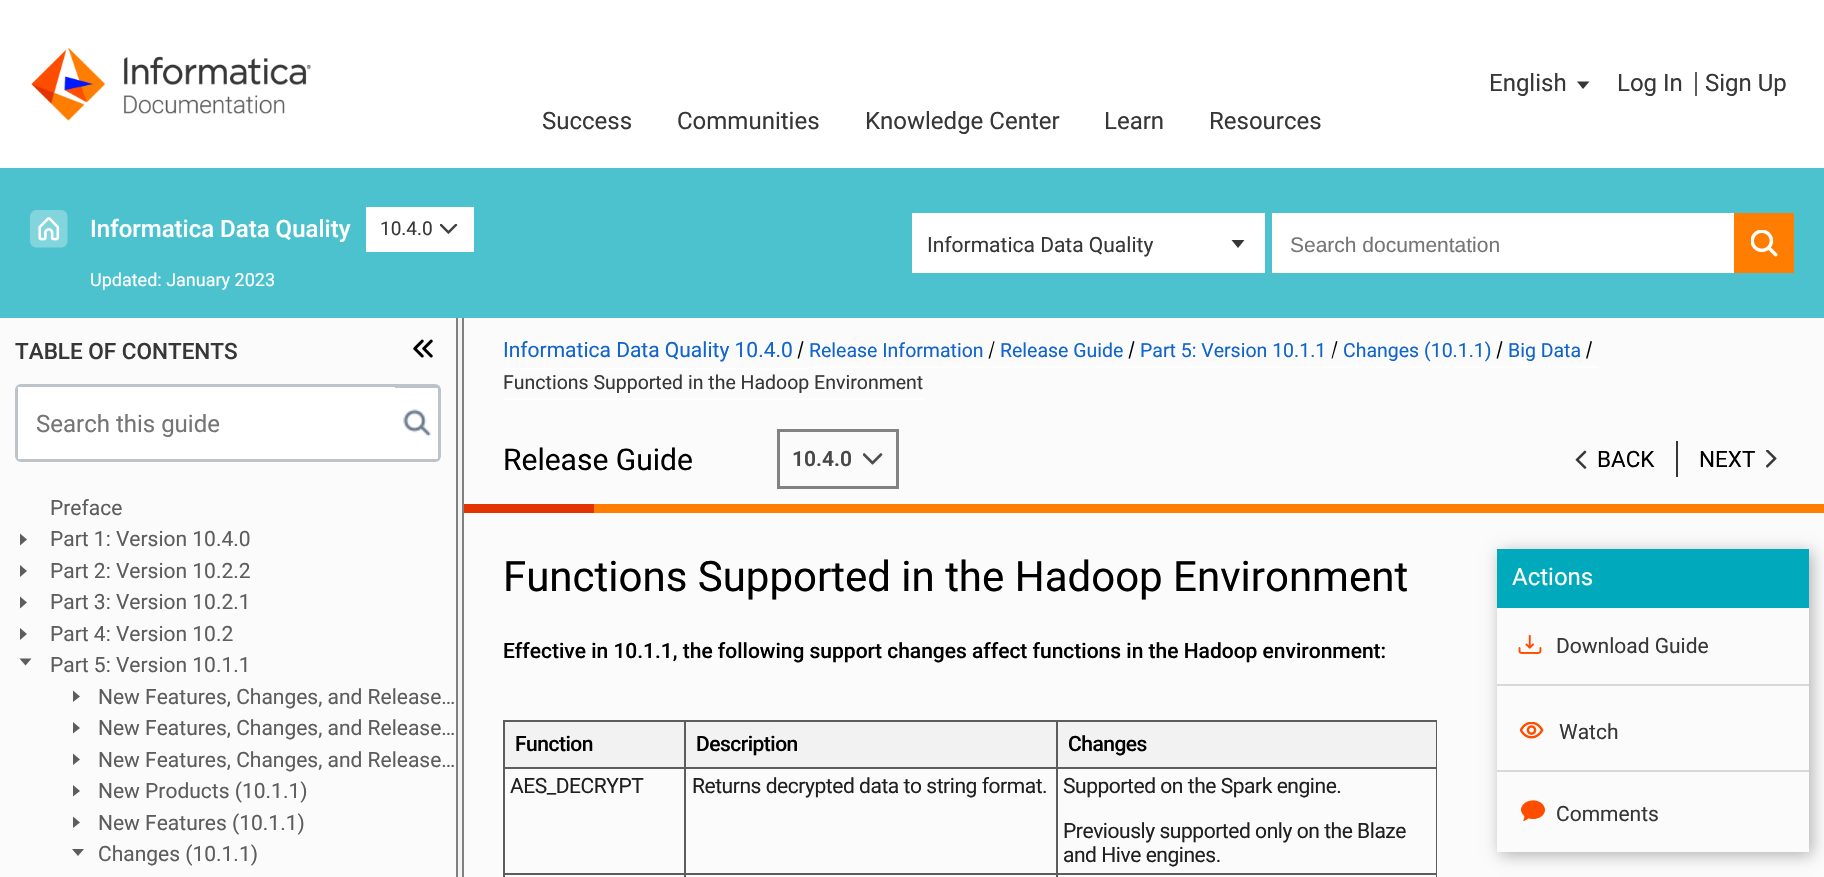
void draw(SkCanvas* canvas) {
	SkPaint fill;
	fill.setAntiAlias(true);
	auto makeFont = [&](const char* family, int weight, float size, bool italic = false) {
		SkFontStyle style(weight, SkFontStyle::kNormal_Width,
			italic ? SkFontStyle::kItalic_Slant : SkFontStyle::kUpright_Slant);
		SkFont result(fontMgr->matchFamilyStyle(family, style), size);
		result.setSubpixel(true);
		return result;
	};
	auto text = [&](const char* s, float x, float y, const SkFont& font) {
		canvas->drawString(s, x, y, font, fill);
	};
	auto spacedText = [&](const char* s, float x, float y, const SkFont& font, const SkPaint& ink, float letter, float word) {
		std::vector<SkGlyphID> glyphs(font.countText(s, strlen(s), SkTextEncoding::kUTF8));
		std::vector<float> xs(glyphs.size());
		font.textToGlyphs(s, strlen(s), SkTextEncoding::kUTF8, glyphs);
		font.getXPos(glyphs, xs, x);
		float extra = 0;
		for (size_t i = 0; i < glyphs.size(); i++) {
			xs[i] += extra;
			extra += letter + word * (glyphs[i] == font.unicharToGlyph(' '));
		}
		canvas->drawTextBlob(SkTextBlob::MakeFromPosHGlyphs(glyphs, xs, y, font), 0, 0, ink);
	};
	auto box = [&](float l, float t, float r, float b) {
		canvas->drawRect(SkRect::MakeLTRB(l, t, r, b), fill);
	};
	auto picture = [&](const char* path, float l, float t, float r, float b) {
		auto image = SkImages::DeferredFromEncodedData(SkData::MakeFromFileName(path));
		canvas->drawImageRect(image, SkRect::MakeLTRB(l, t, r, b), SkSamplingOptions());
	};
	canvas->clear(0xFFFFFFFF);
	picture("image0.png", 31, 47, 311, 121);
	fill.setColor(0xFF373737);
	canvas->drawPath(SkPathBuilder().moveTo(1589.5f, 81.5f).lineTo(1583, 89).lineTo(1577, 81.5f).close().detach(), fill);
	fill.setColor(0xFF5D5D5D);
	box(1695, 72, 1697, 96);
	fill.setColor(0xFF4DC2CF);
	box(0, 168, 1824, 318);
	picture("image1.png", 30, 210, 68, 248);
	fill.setColor(0xFFFFFFFF);
	box(366, 207, 474, 252);
	picture("image2.png", 440, 224, 458, 234);
	box(912, 213, 1265, 273);
	fill.setColor(0xFF373737);
	canvas->drawPath(SkPathBuilder().moveTo(1244.5f, 240).lineTo(1238, 248).lineTo(1231.5f, 240).close().detach(), fill);
	fill.setColor(0xFFFFFFFF);
	box(1272, 213, 1734, 273);
	fill.setColor(0xFFFF7D00);
	box(1734, 213, 1794, 273);
	picture("image3.png", 1751, 230, 1778, 257);
	fill.setColor(0xFFFBFBFB);
	box(0, 318, 456, 877);
	fill.setColor(0xFFFFFFFF);
	canvas->drawRoundRect(SkRect::MakeLTRB(16, 385, 440, 461), 5, 5, fill);
	fill.setStyle(SkPaint::kStroke_Style);
	fill.setStrokeWidth(2);
	fill.setColor(0xFFBCC3CA);
	canvas->drawRoundRect(SkRect::MakeLTRB(16, 385, 440, 461), 5, 5, fill);
	canvas->drawRoundRect(SkRect::MakeLTRB(18, 387, 439, 460), 2, 2, fill);
	fill.setStyle(SkPaint::kFill_Style);
	fill.setColor(0xFFFFFFFF);
	box(18, 387, 395, 459);
	picture("image4.png", 403, 409, 431, 437);
	picture("image5.png", 413, 339, 433, 358);
	fill.setColor(0xFFF4F4F4);
	box(458, 318, 462, 877);
	fill.setColor(0xFF808080);
	box(462, 318, 464, 877);
	box(456, 318, 458, 877);
	fill.setColor(0xFF5D5D5D);
	canvas->drawPath(SkPathBuilder().moveTo(20, 533.5f).lineTo(27, 539.5f).lineTo(20, 545.5f).close().detach(), fill);
	canvas->drawPath(SkPathBuilder().moveTo(20, 565).lineTo(27, 571).lineTo(20, 577).close().detach(), fill);
	canvas->drawPath(SkPathBuilder().moveTo(20, 596.5f).lineTo(27, 602.5f).lineTo(20, 608.5f).close().detach(), fill);
	canvas->drawPath(SkPathBuilder().moveTo(20, 628).lineTo(27, 634).lineTo(20, 640).close().detach(), fill);
	canvas->drawPath(SkPathBuilder().moveTo(31.5f, 658.5f).lineTo(25.5f, 665.5f).lineTo(19.5f, 658.5f).close().moveTo(73, 690.5f).lineTo(80, 696.5f).lineTo(73, 702).close().detach(), fill);
	canvas->drawPath(SkPathBuilder().moveTo(73, 722).lineTo(80, 728).lineTo(73, 733.5f).close().moveTo(73, 753.5f).lineTo(80, 759.5f).lineTo(73, 765).close().detach(), fill);
	canvas->drawPath(SkPathBuilder().moveTo(73, 785).lineTo(80, 791).lineTo(73, 796.5f).close().moveTo(73, 816.5f).lineTo(80, 822.5f).lineTo(73, 828).close().detach(), fill);
	canvas->drawPath(SkPathBuilder().moveTo(84, 849).lineTo(78, 856).lineTo(72, 849).close().detach(), fill);
	fill.setColor(0xFFFBFBFB);
	box(464, 318, 1824, 877);
	fill.setColor(0xFFFFFFFF);
	box(503, 368, 809, 370);
	fill.setColor(0xFF000000);
	canvas->drawPath(SkPathBuilder().moveTo(802, 341).lineTo(803.5f, 341.5f).lineTo(799, 358.5f).lineTo(797.5f, 358.5f).close().detach(), fill);
	fill.setColor(0xFFFFFFFF);
	box(809, 366, 1598, 368);
	fill.setColor(0xFF000000);
	canvas->drawPath(SkPathBuilder().moveTo(993.5f, 341).lineTo(994.5f, 341.5f).lineTo(990, 358.5f).lineTo(988.5f, 358.5f).close().detach(), fill);
	canvas->drawPath(SkPathBuilder().moveTo(1133, 341).lineTo(1134.5f, 341.5f).lineTo(1130, 358.5f).lineTo(1128.5f, 358.5f).close().detach(), fill);
	canvas->drawPath(SkPathBuilder().moveTo(1336, 341).lineTo(1337.5f, 341.5f).lineTo(1332.5f, 358.5f).lineTo(1331.5f, 358.5f).close().detach(), fill);
	canvas->drawPath(SkPathBuilder().moveTo(1501, 341).lineTo(1502.5f, 341.5f).lineTo(1498, 358.5f).lineTo(1496.5f, 358.5f).close().detach(), fill);
	canvas->drawPath(SkPathBuilder().moveTo(1590.5f, 341).lineTo(1592, 341.5f).lineTo(1587.5f, 358.5f).lineTo(1586, 358.5f).close().detach(), fill);
	fill.setColor(0xFFFFFFFF);
	box(503, 398, 923, 400);
	fill.setStyle(SkPaint::kStroke_Style);
	fill.setStrokeWidth(3);
	fill.setColor(0xFF828282);
	canvas->drawRect(SkRect::MakeLTRB(778.5f, 430.5f, 897.5f, 487.5f), fill);
	picture("image6.png", 863, 453, 883, 465);
	picture("image7.png", 1575, 450, 1587, 469);
	fill.setStyle(SkPaint::kFill_Style);
	fill.setColor(0xFF373737);
	box(1676, 441, 1678, 477);
	picture("image8.png", 1766, 450, 1777, 468);
	fill.setColor(0xFFFF7D00);
	box(594, 504, 1824, 513);
	fill.setColor(0xFFE23400);
	box(464, 504, 594, 513);
	fill.setColor(0xFF5D5D5D);
	box(503, 720, 1437, 722);
	box(1436, 720, 1437, 877);
	box(503, 720, 505, 877);
	fill.setColor(0xFFF2F2F2);
	box(505, 722, 684, 767);
	box(686, 722, 1056, 767);
	fill.setColor(0xFF5D5D5D);
	box(1056, 767, 1437, 769);
	box(1056, 873, 1437, 875);
	box(1056, 873, 1058, 877);
	box(684, 873, 1058, 875);
	box(1056, 767, 1058, 875);
	box(684, 767, 1058, 769);
	box(684, 873, 686, 877);
	box(503, 873, 686, 875);
	box(684, 767, 686, 875);
	box(503, 767, 686, 769);
	box(684, 720, 686, 768);
	fill.setColor(0xFFF2F2F2);
	box(1058, 722, 1436, 767);
	fill.setColor(0xFF5D5D5D);
	box(1056, 720, 1058, 768);
	canvas->save();
	canvas->clipPath(SkPathBuilder(SkPathFillType::kEvenOdd).moveTo(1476, 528).lineTo(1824, 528).lineTo(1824, 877).lineTo(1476, 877).close().moveTo(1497, 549).lineTo(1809, 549).lineTo(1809, 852).lineTo(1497, 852).close().detach(), true);
	fill.setColor(0x4D000000);
	fill.setMaskFilter(SkMaskFilter::MakeBlur(kNormal_SkBlurStyle, 7.5f));
	canvas->drawRect(SkRect::MakeLTRB(1500, 552, 1812, 855), fill);
	fill.setMaskFilter(nullptr);
	canvas->restore();
	fill.setColor(0xFF00A9BB);
	box(1497, 549, 1809, 608);
	fill.setColor(0xFFD8D8D8);
	box(1497, 684, 1809, 686);
	picture("image9.png", 1518, 634, 1542, 654);
	box(1497, 770, 1809, 772);
	picture("image10.png", 1520, 722, 1544, 739);
	picture("image11.png", 1521, 800, 1545, 821);
	auto font1 = makeFont("Roboto", 400, 24);
	fill.setColor(0xFF373737);
	text("English", 1489, 91, font1);
	text("Log In", 1617, 91, font1);
	text("Sign Up", 1705, 91, font1);
	text("Success", 542, 129, font1);
	text("Communities", 677, 129, font1);
	text("Knowledge Center", 865, 129, font1);
	text("Learn", 1104, 129, font1);
	text("Resources", 1209, 129, font1);
	auto font2 = makeFont("Roboto", 500, 24);
	fill.setColor(0xFFFFFFFF);
	text("Informatica Data Quality", 90, 237, font2);
	auto font3 = makeFont("Roboto", 400, 19);
	fill.setColor(0xFF373737);
	text("10.4.0", 380, 235, font3);
	auto font4 = makeFont("Roboto", 400, 18);
	fill.setColor(0xFFFFFFFF);
	text("Updated: January 2023", 90, 286, font4);
	auto font5 = makeFont("Roboto", 400, 21);
	fill.setColor(0xFF373737);
	text("Informatica Data Quality", 927, 252, font5);
	auto font6 = makeFont("Liberation Sans", 400, 21);
	fill.setColor(0xFF757575);
	text("Search documentation", 1290, 252, font6);
	auto font7 = makeFont("Roboto", 500, 22.5f);
	fill.setColor(0xFF373737);
	text("TABLE OF CONTENTS", 15, 359, font7);
	fill.setColor(0xFF757575);
	text("Search this guide", 36, 432, font1);
	fill.setColor(0xFF5D5D5D);
	text("Preface", 50, 515, font5);
	text("Part 1: Version 10.4.0", 50, 546, font5);
	text("Part 2: Version 10.2.2", 50, 578, font5);
	text("Part 3: Version 10.2.1", 50, 609, font5);
	text("Part 4: Version 10.2", 50, 641, font5);
	text("Part 5: Version 10.1.1", 50, 672, font5);
	text("New Features, Changes, and Release…", 98, 704, font5);
	text("New Features, Changes, and Release…", 98, 735, font5);
	text("New Features, Changes, and Release…", 98, 767, font5);
	text("New Products (10.1.1)", 98, 798, font5);
	text("New Features (10.1.1)", 98, 830, font5);
	text("Changes (10.1.1)", 98, 861, font5);
	fill.setColor(0xFF0F64CD);
	text("Informatica Data Quality 10.4.0", 503, 357, font5);
	auto font8 = makeFont("Roboto", 400, 19.5f);
	text("Release Information", 809, 357, font8);
	text("Release Guide", 1000, 357, font8);
	text("Part 5: Version 10.1.1", 1140, 357, font8);
	text("Changes (10.1.1)", 1343, 357, font8);
	text("Big Data", 1508, 357, font8);
	fill.setColor(0xFF373737);
	text("Functions Supported in the Hadoop Environment", 503, 389, font8);
	auto font9 = makeFont("Roboto", 400, 30);
	fill.setColor(0xFF000000);
	text("Release Guide", 503, 470, font9);
	auto font10 = makeFont("Roboto", 600, 21);
	fill.setColor(0xFF484848);
	text("10.4.0", 792, 466, font10);
	auto font11 = makeFont("Roboto", 400, 22.5f);
	fill.setColor(0xFF000000);
	text("BACK", 1597, 467, font11);
	text("NEXT", 1699, 467, font11);
	auto font12 = makeFont("Roboto", 400, 42);
	text("Functions Supported in the Hadoop Environment", 503, 591, font12);
	auto font13 = makeFont("Roboto", 500, 21);
	text("Effective in 10.1.1, the following support changes affect functions in the Hadoop environment:", 503, 658, font13);
	spacedText("Function", 515, 751, font13, fill, -0.5f, 0);
	spacedText("Description", 696, 751, font13, fill, -0.5f, 0);
	spacedText("Changes", 1068, 751, font13, fill, -0.5f, 0);
	fill.setColor(0xFF202020);
	spacedText("AES_DECRYPT", 510, 793, font5, fill, -0.45f, 0);
	spacedText("Returns decrypted data to string format.", 692, 793, font5, fill, -0.45f, 0);
	spacedText("Supported on the Spark engine.", 1063, 793, font5, fill, -0.45f, 0);
	spacedText("Previously supported only on the Blaze", 1063, 838, font5, fill, -0.45f, 0);
	spacedText("and Hive engines.", 1063, 862, font5, fill, -0.45f, 0);
	fill.setColor(0xFFFFFFFF);
	text("Actions", 1512, 585, font1);
	fill.setColor(0xFF373737);
	text("Download Guide", 1556, 653, font5);
	text("Watch", 1559, 739, font5);
	text("Comments", 1556, 821, font5);
}
